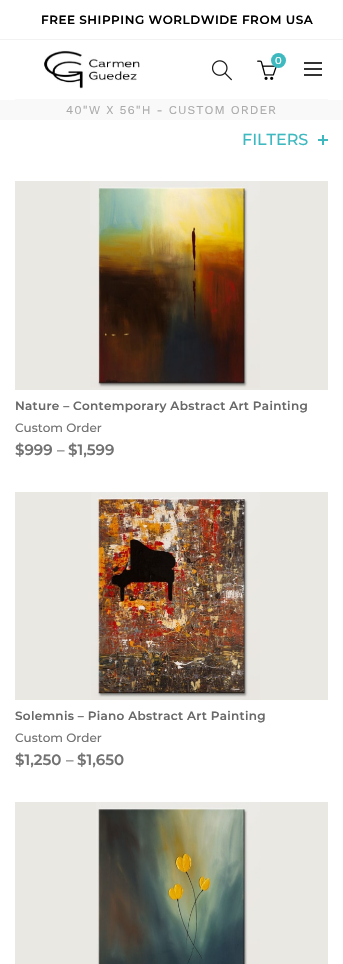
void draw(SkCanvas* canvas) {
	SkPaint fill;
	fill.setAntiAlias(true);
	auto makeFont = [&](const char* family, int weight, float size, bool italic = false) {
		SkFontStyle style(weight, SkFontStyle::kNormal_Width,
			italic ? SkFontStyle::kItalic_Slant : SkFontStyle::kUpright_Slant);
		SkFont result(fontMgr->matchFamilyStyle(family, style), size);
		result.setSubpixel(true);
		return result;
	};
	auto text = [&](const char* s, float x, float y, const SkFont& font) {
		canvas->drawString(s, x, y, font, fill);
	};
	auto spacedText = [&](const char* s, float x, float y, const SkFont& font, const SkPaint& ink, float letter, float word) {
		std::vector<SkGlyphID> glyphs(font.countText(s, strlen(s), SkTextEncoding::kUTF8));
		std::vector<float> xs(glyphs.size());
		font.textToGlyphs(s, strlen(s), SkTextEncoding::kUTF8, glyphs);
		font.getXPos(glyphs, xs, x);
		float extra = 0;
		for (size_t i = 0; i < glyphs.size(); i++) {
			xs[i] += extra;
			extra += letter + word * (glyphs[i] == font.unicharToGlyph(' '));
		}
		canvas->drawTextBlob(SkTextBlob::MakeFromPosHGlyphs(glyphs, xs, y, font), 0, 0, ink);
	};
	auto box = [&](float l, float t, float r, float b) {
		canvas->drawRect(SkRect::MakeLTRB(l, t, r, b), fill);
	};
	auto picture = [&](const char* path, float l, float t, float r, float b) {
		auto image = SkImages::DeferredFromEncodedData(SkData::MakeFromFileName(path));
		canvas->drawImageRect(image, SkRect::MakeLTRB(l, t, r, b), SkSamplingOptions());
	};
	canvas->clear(0xFFFFFFFF);
	fill.setColor(0xFFF2F2F2);
	box(0, 39, 343, 40);
	fill.setColor(0xFFF8F8F8);
	box(15, 99, 328, 100);
	picture("image0.png", 44, 50, 140, 89);
	picture("image1.png", 212, 60, 232, 81);
	picture("image2.png", 257, 60, 277, 80);
	fill.setColor(0xFF3EB9C0);
	canvas->drawCircle(278.5f, 60.5f, 7.5f, fill);
	fill.setColor(0xFF333333);
	box(304, 68, 322, 70);
	box(304, 62, 322, 64);
	box(304, 74, 322, 76);
	fill.setColor(0xFFF9F9F9);
	box(0, 100, 343, 120);
	fill.setColor(0xFF3EB9C0);
	box(322, 135, 324, 145);
	box(318, 139, 328, 141);
	fill.setColor(0xFFE9E8E3);
	box(15, 181, 328, 390);
	picture("image3.png", 90, 181, 260, 388);
	box(15, 492, 328, 700);
	picture("image4.png", 91, 492, 260, 700);
	box(15, 802, 328, 964);
	picture("image5.png", 96, 802, 260, 964);
	auto font1 = makeFont("Montserrat", 600, 12);
	fill.setColor(0xFF000000);
	spacedText("FREE SHIPPING WORLDWIDE FROM USA", 41, 24, font1, fill, 0.5f, 0);
	auto font2 = makeFont("Montserrat", 500, 10);
	fill.setColor(0xFFFFFFFF);
	text("0", 275, 64, font2);
	auto font3 = makeFont("Work Sans", 400, 12);
	fill.setColor(0xFFAAAAAA);
	spacedText("40\"W X 56\"H - CUSTOM ORDER", 66, 114, font3, fill, 1, 0);
	auto font4 = makeFont("Montserrat", 500, 16);
	fill.setColor(0xFF3EB9C0);
	text("FILTERS", 242, 145, font4);
	fill.setColor(0xFF686868);
	spacedText("Nature – Contemporary Abstract Art Painting", 15, 410, font1, fill, 0.3f, 0);
	auto font5 = makeFont("Montserrat", 500, 12);
	fill.setColor(0xFF727272);
	text("Custom Order", 15, 432, font5);
	auto font6 = makeFont("Montserrat", 600, 15);
	text("$999", 15, 455, font6);
	fill.setColor(0xFF949494);
	text("–", 57, 455, font6);
	fill.setColor(0xFF727272);
	text("$1,599", 68, 455, font6);
	fill.setColor(0xFF686868);
	spacedText("Solemnis – Piano Abstract Art Painting", 15, 720, font1, fill, 0.3f, 0);
	fill.setColor(0xFF727272);
	text("Custom Order", 15, 742, font5);
	text("$1,250", 15, 765, font6);
	fill.setColor(0xFF949494);
	text("–", 66, 765, font6);
	fill.setColor(0xFF727272);
	text("$1,650", 77, 765, font6);
}
